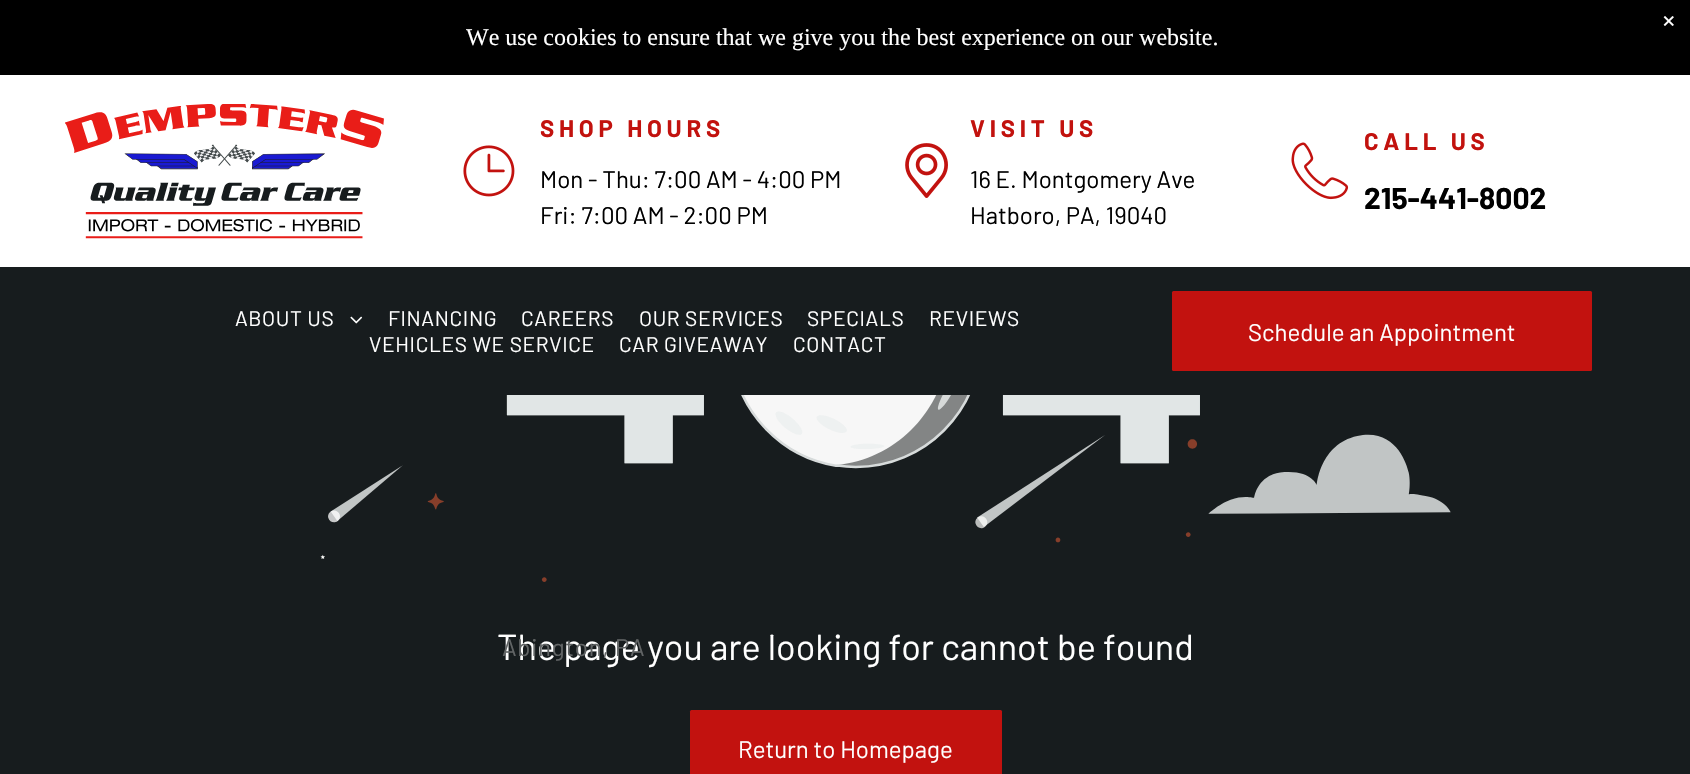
void draw(SkCanvas* canvas) {
	SkPaint fill;
	fill.setAntiAlias(true);
	auto makeFont = [&](const char* family, int weight, float size, bool italic = false) {
		SkFontStyle style(weight, SkFontStyle::kNormal_Width,
			italic ? SkFontStyle::kItalic_Slant : SkFontStyle::kUpright_Slant);
		SkFont result(fontMgr->matchFamilyStyle(family, style), size);
		result.setSubpixel(true);
		return result;
	};
	auto text = [&](const char* s, float x, float y, const SkFont& font) {
		canvas->drawString(s, x, y, font, fill);
	};
	auto spacedText = [&](const char* s, float x, float y, const SkFont& font, const SkPaint& ink, float letter, float word) {
		std::vector<SkGlyphID> glyphs(font.countText(s, strlen(s), SkTextEncoding::kUTF8));
		std::vector<float> xs(glyphs.size());
		font.textToGlyphs(s, strlen(s), SkTextEncoding::kUTF8, glyphs);
		font.getXPos(glyphs, xs, x);
		float extra = 0;
		for (size_t i = 0; i < glyphs.size(); i++) {
			xs[i] += extra;
			extra += letter + word * (glyphs[i] == font.unicharToGlyph(' '));
		}
		canvas->drawTextBlob(SkTextBlob::MakeFromPosHGlyphs(glyphs, xs, y, font), 0, 0, ink);
	};
	auto box = [&](float l, float t, float r, float b) {
		canvas->drawRect(SkRect::MakeLTRB(l, t, r, b), fill);
	};
	auto roundBox = [&](float l, float t, float r, float b, float radius) {
		canvas->drawRoundRect(SkRect::MakeLTRB(l, t, r, b), radius, radius, fill);
	};
	auto picture = [&](const char* path, float l, float t, float r, float b) {
		auto image = SkImages::DeferredFromEncodedData(SkData::MakeFromFileName(path));
		canvas->drawImageRect(image, SkRect::MakeLTRB(l, t, r, b), SkSamplingOptions());
	};
	canvas->clear(0xFF171C1E);
	fill.setColor(0xFF000000);
	box(0, 0, 1690, 75);
	fill.setColor(0xFFFFFFFF);
	box(0, 75, 1690, 267);
	picture("image0.png", 65, 104, 384, 239);
	picture("image1.png", 463, 145, 515, 197);
	picture("image2.png", 905, 143, 948, 198);
	picture("image3.png", 1291, 142, 1349, 200);
	picture("image4.png", 350, 316, 363, 324);
	fill.setColor(0xFFC2120F);
	roundBox(1172, 291, 1592, 371, 1.5f);
	picture("image5.png", 320, 395, 1451, 582);
	roundBox(690, 710, 1002, 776, 1.5f);
	auto font1 = makeFont("Liberation Serif", 700, 24);
	fill.setColor(0xFFFFFFFF);
	text("×", 1662, 29, font1);
	auto font2 = makeFont("Liberation Serif", 400, 24);
	text("We use cookies to ensure that we give you the best experience on our website.", 466, 45, font2);
	auto font3 = makeFont("Barlow", 700, 24);
	fill.setColor(0xFFC2120E);
	spacedText("SHOP HOURS", 540, 137, font3, fill, 4.75f, 0);
	auto font4 = makeFont("Barlow", 400, 24);
	fill.setColor(0xFF000000);
	text("Mon - Thu: 7:00 AM - 4:00 PM", 540, 188, font4);
	text("Fri: 7:00 AM - 2:00 PM", 540, 224, font4);
	fill.setColor(0xFFC2120E);
	spacedText("VISIT US", 970, 137, font3, fill, 4.75f, 0);
	fill.setColor(0xFF000000);
	text("16 E. Montgomery Ave", 970, 188, font4);
	text("Hatboro, PA, 19040", 970, 224, font4);
	fill.setColor(0xFFC2120E);
	spacedText("CALL US", 1364, 150, font3, fill, 4.75f, 0);
	auto font5 = makeFont("Barlow", 700, 30);
	fill.setColor(0xFF000000);
	text("215-441-8002", 1364, 209, font5);
	auto font6 = makeFont("Barlow", 400, 21);
	fill.setColor(0xFFFFFFFF);
	spacedText("ABOUT US", 235, 326, font6, fill, 0.6f, 0);
	spacedText("FINANCING", 388, 326, font6, fill, 0.6f, 0);
	spacedText("CAREERS", 521, 326, font6, fill, 0.6f, 0);
	spacedText("OUR SERVICES", 639, 326, font6, fill, 0.6f, 0);
	spacedText("SPECIALS", 807, 326, font6, fill, 0.6f, 0);
	spacedText("REVIEWS", 929, 326, font6, fill, 0.6f, 0);
	spacedText("VEHICLES WE SERVICE", 369, 352, font6, fill, 0.6f, 0);
	spacedText("CAR GIVEAWAY", 619, 352, font6, fill, 0.6f, 0);
	spacedText("CONTACT", 793, 352, font6, fill, 0.6f, 0);
	text("Schedule an Appointment", 1248, 341, font4);
	auto font7 = makeFont("Barlow", 400, 36);
	text("The page you are looking for cannot be found", 497, 660, font7);
	fill.setColor(0xFF616465);
	spacedText("Abington, PA", 502, 656, font4, fill, 0.75f, 0);
	fill.setColor(0xFFFFFFFF);
	text("Return to Homepage", 738, 758, font4);
}
